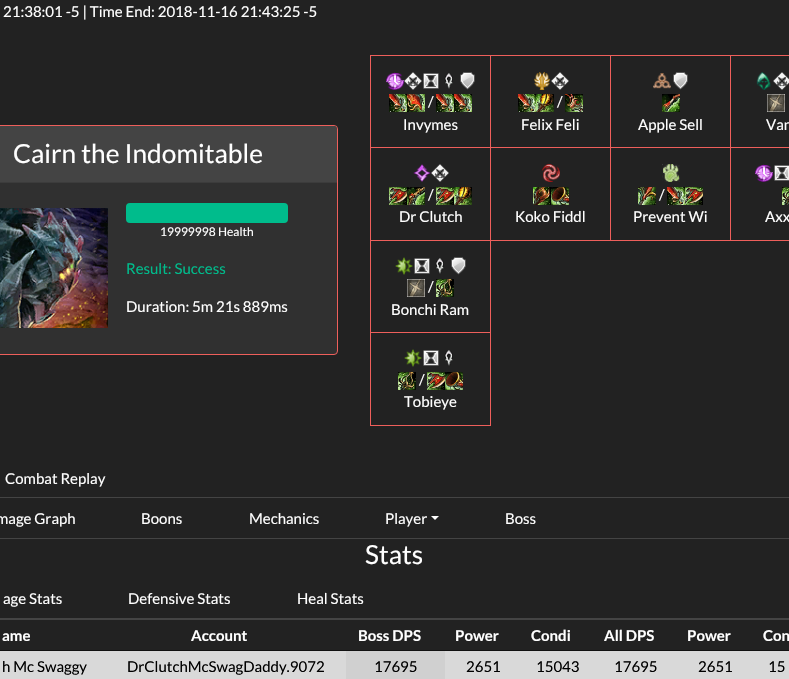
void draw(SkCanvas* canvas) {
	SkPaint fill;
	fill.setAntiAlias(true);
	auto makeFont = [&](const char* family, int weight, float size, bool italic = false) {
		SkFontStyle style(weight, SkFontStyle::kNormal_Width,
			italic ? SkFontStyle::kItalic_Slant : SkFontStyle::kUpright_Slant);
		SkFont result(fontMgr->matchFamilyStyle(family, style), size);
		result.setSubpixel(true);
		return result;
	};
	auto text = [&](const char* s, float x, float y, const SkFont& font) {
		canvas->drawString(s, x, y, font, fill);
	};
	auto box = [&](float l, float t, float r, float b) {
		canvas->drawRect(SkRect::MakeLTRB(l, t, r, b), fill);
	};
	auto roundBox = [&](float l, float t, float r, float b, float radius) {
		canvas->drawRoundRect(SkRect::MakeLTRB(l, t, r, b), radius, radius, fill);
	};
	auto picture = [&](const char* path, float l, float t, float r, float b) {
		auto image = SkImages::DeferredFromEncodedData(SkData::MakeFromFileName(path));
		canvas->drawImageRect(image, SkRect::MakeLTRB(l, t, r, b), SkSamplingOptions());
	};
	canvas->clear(0xFF222222);
	fill.setColor(0xFF303030);
	canvas->drawRoundRect(SkRect::MakeLTRB(-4.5f, 125.5f, 337.5f, 354.5f), 3.5f, 3.5f, fill);
	fill.setStyle(SkPaint::kStroke_Style);
	fill.setStrokeWidth(1);
	fill.setColor(0xFFEE5F5B);
	canvas->drawRoundRect(SkRect::MakeLTRB(-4.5f, 125.5f, 337.5f, 354.5f), 3.5f, 3.5f, fill);
	fill.setStyle(SkPaint::kFill_Style);
	fill.setColor(0xFF444444);
	canvas->drawPath(SkPathBuilder().moveTo(0, 126).lineTo(334, 126).cubicTo(335.5f, 126, 337, 127.5f, 337, 129).lineTo(337, 183).lineTo(-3, 183).lineTo(-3, 129).cubicTo(-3, 127.5f, -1.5f, 126, 0, 126).close().detach(), fill);
	fill.setColor(0xFF3C3C3C);
	box(0, 182, 337, 183);
	picture("image0.png", 0, 208, 108, 328);
	fill.setColor(0xFF00BC8C);
	roundBox(126, 203, 288, 223, 4);
	fill.setColor(0xFFEE5F5B);
	box(730, 55, 789, 56);
	box(730, 147, 789, 148);
	box(730, 240, 789, 241);
	box(730, 147, 731, 241);
	box(610, 147, 731, 148);
	box(730, 55, 731, 148);
	box(610, 55, 731, 56);
	box(610, 240, 731, 241);
	box(610, 147, 611, 241);
	box(490, 147, 611, 148);
	box(610, 55, 611, 148);
	box(490, 55, 611, 56);
	box(370, 240, 491, 241);
	box(370, 332, 491, 333);
	box(490, 332, 491, 426);
	box(490, 240, 491, 333);
	box(490, 240, 611, 241);
	box(490, 147, 491, 241);
	box(370, 147, 491, 148);
	box(490, 55, 491, 148);
	box(370, 55, 491, 56);
	box(370, 425, 491, 426);
	box(370, 332, 371, 426);
	box(370, 240, 371, 333);
	box(370, 147, 371, 241);
	box(370, 55, 371, 148);
	picture("image1.png", 386, 72, 404, 90);
	picture("image2.png", 404, 72, 422, 90);
	picture("image3.png", 423, 73, 439, 89);
	picture("image4.png", 444, 73, 453, 89);
	picture("image5.png", 460, 72, 475, 90);
	picture("image6.png", 389, 94, 407, 112);
	picture("image7.png", 407, 94, 425, 112);
	picture("image6.png", 436, 94, 454, 112);
	picture("image6.png", 454, 94, 472, 112);
	picture("image8.png", 534, 72, 551, 90);
	picture("image2.png", 551, 72, 569, 90);
	picture("image6.png", 518, 94, 536, 112);
	picture("image9.png", 536, 94, 554, 112);
	picture("image10.png", 565, 94, 583, 112);
	picture("image11.png", 653, 73, 671, 89);
	picture("image5.png", 673, 72, 688, 90);
	picture("image12.png", 662, 94, 680, 112);
	picture("image13.png", 756, 72, 771, 90);
	picture("image14.png", 773, 72, 789, 90);
	picture("image15.png", 767, 94, 785, 112);
	picture("image16.png", 413, 164, 431, 182);
	picture("image2.png", 431, 164, 449, 182);
	picture("image17.png", 389, 187, 407, 205);
	picture("image18.png", 407, 187, 425, 205);
	picture("image17.png", 436, 187, 454, 205);
	picture("image19.png", 454, 187, 472, 205);
	picture("image20.png", 542, 164, 560, 182);
	picture("image21.png", 533, 187, 551, 205);
	picture("image22.png", 551, 187, 569, 205);
	picture("image23.png", 662, 164, 680, 182);
	picture("image24.png", 638, 187, 656, 205);
	picture("image25.png", 667, 187, 685, 205);
	picture("image26.png", 685, 187, 703, 205);
	picture("image27.png", 755, 164, 773, 182);
	picture("image28.png", 774, 165, 789, 181);
	picture("image29.png", 782, 187, 789, 205);
	picture("image30.png", 395, 257, 413, 275);
	picture("image3.png", 414, 258, 430, 274);
	picture("image4.png", 435, 258, 444, 274);
	picture("image5.png", 451, 257, 466, 275);
	picture("image15.png", 407, 279, 425, 297);
	picture("image31.png", 436, 279, 454, 297);
	picture("image30.png", 404, 349, 422, 367);
	picture("image3.png", 423, 350, 439, 366);
	picture("image4.png", 444, 350, 453, 366);
	picture("image32.png", 398, 372, 416, 390);
	picture("image17.png", 427, 372, 445, 390);
	picture("image33.png", 445, 372, 463, 390);
	fill.setColor(0xFF444444);
	box(0, 497, 789, 498);
	box(0, 538, 789, 539);
	fill.setColor(0xFFFFFFFF);
	canvas->drawPath(SkPathBuilder().moveTo(431, 516).lineTo(439, 516).lineTo(435, 520).close().detach(), fill);
	fill.setColor(0xFF444444);
	box(0, 618, 789, 619);
	box(0, 619, 789, 620);
	fill.setColor(0xFF111111);
	box(0, 650, 789, 651);
	fill.setColor(0xFFD9D9D9);
	box(0, 651, 789, 679);
	fill.setColor(0xFFD0D0D0);
	box(346, 651, 445, 679);
	auto font1 = makeFont("Lato", 400, 15);
	fill.setColor(0xFFFFFFFF);
	text("21:38:01 -5 | Time End: 2018-11-16 21:43:25 -5", 3, 17, font1);
	auto font2 = makeFont("Lato", 400, 26.25f);
	text("Cairn the Indomitable", 13, 163, font2);
	auto font3 = makeFont("Lato", 400, 12);
	text("19999998 Health", 160, 236, font3);
	fill.setColor(0xFF00BC8C);
	text("Result: Success", 126, 274, font1);
	fill.setColor(0xFFFFFFFF);
	text("Duration: 5m 21s 889ms", 126, 312, font1);
	text("/", 428, 107, font1);
	text("Invymes", 403, 130, font1);
	text("/", 557, 107, font1);
	text("Felix Feli", 521, 130, font1);
	text("Apple Sell", 638, 130, font1);
	text("Van", 766, 130, font1);
	text("/", 428, 200, font1);
	text("Dr Clutch", 399, 222, font1);
	text("Koko Fiddl", 515, 222, font1);
	text("/", 659, 200, font1);
	text("Prevent Wi", 633, 222, font1);
	text("Axx", 765, 222, font1);
	text("/", 428, 292, font1);
	text("Bonchi Ram", 391, 315, font1);
	text("/", 419, 385, font1);
	text("Tobieye", 404, 407, font1);
	text("Combat Replay", 5, 484, font1);
	text("mage Graph", -4, 524, font1);
	text("Boons", 141, 524, font1);
	text("Mechanics", 249, 524, font1);
	text("Player", 385, 524, font1);
	text("Boss", 505, 524, font1);
	text("Stats", 365, 564, font2);
	text("age Stats", 3, 604, font1);
	text("Defensive Stats", 128, 604, font1);
	text("Heal Stats", 297, 604, font1);
	auto font4 = makeFont("Lato", 700, 15);
	text("ame", 2, 641, font4);
	text("Account", 191, 641, font4);
	text("Boss DPS", 358, 641, font4);
	text("Power", 455, 641, font4);
	text("Condi", 531, 641, font4);
	text("All DPS", 604, 641, font4);
	text("Power", 687, 641, font4);
	text("Con", 763, 641, font4);
	fill.setColor(0xFF000000);
	text("h Mc Swaggy", 2, 672, font1);
	text("DrClutchMcSwagDaddy.9072", 127, 672, font1);
	text("17695", 374, 672, font1);
	text("2651", 466, 672, font1);
	text("15043", 536, 672, font1);
	text("17695", 614, 672, font1);
	text("2651", 698, 672, font1);
	text("15", 768, 672, font1);
}
